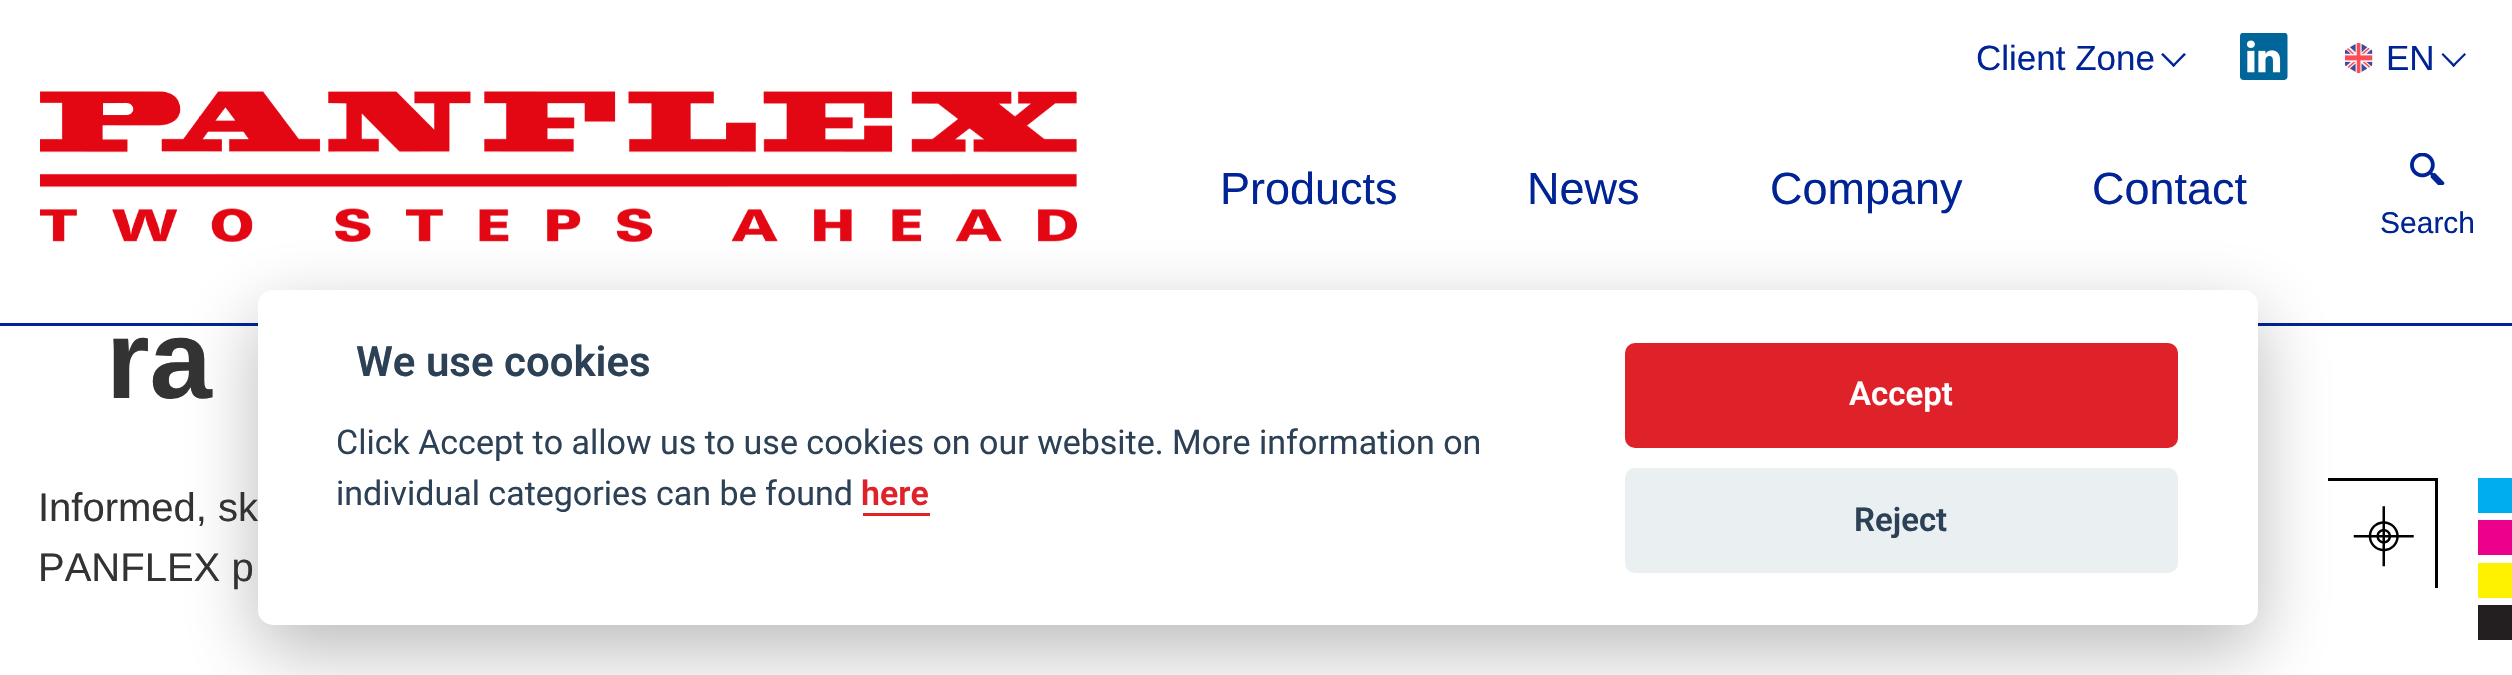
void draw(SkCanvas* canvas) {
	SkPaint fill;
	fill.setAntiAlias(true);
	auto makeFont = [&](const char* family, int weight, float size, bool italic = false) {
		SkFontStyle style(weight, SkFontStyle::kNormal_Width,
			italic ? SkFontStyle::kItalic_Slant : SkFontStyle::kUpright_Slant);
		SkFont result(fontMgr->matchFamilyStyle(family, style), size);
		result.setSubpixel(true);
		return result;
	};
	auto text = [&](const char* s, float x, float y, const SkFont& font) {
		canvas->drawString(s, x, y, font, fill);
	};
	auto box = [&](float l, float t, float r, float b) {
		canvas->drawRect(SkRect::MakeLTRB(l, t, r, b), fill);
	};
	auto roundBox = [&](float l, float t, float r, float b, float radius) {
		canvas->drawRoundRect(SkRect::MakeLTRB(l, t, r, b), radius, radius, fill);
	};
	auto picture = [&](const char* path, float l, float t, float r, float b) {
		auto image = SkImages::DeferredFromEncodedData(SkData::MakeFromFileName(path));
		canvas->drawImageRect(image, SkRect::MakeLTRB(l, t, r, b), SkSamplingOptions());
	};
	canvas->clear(0xFFFFFFFF);
	fill.setColor(0xFF002395);
	box(0, 323, 2512, 326);
	canvas->drawPath(SkPathBuilder().moveTo(2184, 53).lineTo(2186, 54.5f).lineTo(2173.5f, 67).lineTo(2172, 65.5f).close().detach(), fill);
	canvas->drawPath(SkPathBuilder().moveTo(2163, 53).lineTo(2175.5f, 65.5f).lineTo(2173.5f, 67).lineTo(2161, 54.5f).close().detach(), fill);
	picture("image0.png", 2240, 33, 2288, 80);
	picture("image1.png", 2345, 43, 2373, 74);
	canvas->drawPath(SkPathBuilder().moveTo(2464.5f, 53).lineTo(2466, 54.5f).lineTo(2453.5f, 67).lineTo(2452, 65.5f).close().detach(), fill);
	canvas->drawPath(SkPathBuilder().moveTo(2443, 53).lineTo(2455.5f, 65.5f).lineTo(2453.5f, 67).lineTo(2441.5f, 54.5f).close().detach(), fill);
	picture("image2.png", 40, 91, 1077, 242);
	picture("image3.png", 2410, 153, 2445, 185);
	picture("image4.png", 2353, 506, 2414, 567);
	fill.setColor(0xFF000000);
	box(2328, 478, 2438, 481);
	fill.setColor(0x47020203);
	fill.setMaskFilter(SkMaskFilter::MakeBlur(kNormal_SkBlurStyle, 37.5f));
	canvas->drawRoundRect(SkRect::MakeLTRB(258, 315, 2258, 650), 15, 15, fill);
	fill.setMaskFilter(nullptr);
	fill.setColor(0xFFFFFFFF);
	roundBox(258, 290, 2258, 625, 15);
	fill.setColor(0xFFDF212A);
	box(863, 513, 930, 516);
	roundBox(1625, 343, 2178, 448, 10);
	fill.setColor(0xFFEAEFF2);
	roundBox(1625, 468, 2178, 573, 10);
	fill.setColor(0xFF00AEEF);
	box(2478, 478, 2512, 513);
	fill.setColor(0xFFFFF200);
	box(2478, 563, 2512, 598);
	fill.setColor(0xFFEC008C);
	box(2478, 520, 2512, 555);
	fill.setColor(0xFF231F20);
	box(2478, 605, 2512, 640);
	fill.setColor(0xFF000000);
	box(2435, 478, 2438, 588);
	auto font1 = makeFont("Liberation Sans", 400, 35);
	fill.setColor(0xFF002395);
	text("Client Zone", 1976, 70, font1);
	text("EN", 2386, 70, font1);
	auto font2 = makeFont("Liberation Sans", 400, 45);
	text("Products", 1220, 204, font2);
	text("News", 1527, 204, font2);
	text("Company", 1770, 204, font2);
	text("Contact", 2092, 204, font2);
	auto font3 = makeFont("Liberation Sans", 400, 30);
	text("Search", 2380, 233, font3);
	auto font4 = makeFont("Liberation Sans", 700, 112);
	fill.setColor(0xFF333333);
	text("ra", 106, 398, font4);
	auto font5 = makeFont("Roboto", 600, 42);
	fill.setColor(0xFF2D4156);
	text("We use cookies", 356, 376, font5);
	auto font6 = makeFont("Roboto", 400, 34);
	text("Click Accept to allow us to use cookies on our website.", 336, 454, font6);
	text("More information on", 1172, 454, font6);
	text("individual categories can be found", 336, 505, font6);
	auto font7 = makeFont("Roboto", 600, 34);
	fill.setColor(0xFFDF212A);
	text("here", 861, 505, font7);
	auto font8 = makeFont("Roboto", 600, 33);
	fill.setColor(0xFFFFFFFF);
	text("Accept", 1849, 405, font8);
	fill.setColor(0xFF2D4156);
	text("Reject", 1854, 531, font8);
	auto font9 = makeFont("Liberation Sans", 400, 40);
	fill.setColor(0xFF333333);
	text("Informed, sk", 38, 521, font9);
	text("PANFLEX p", 38, 581, font9);
}
